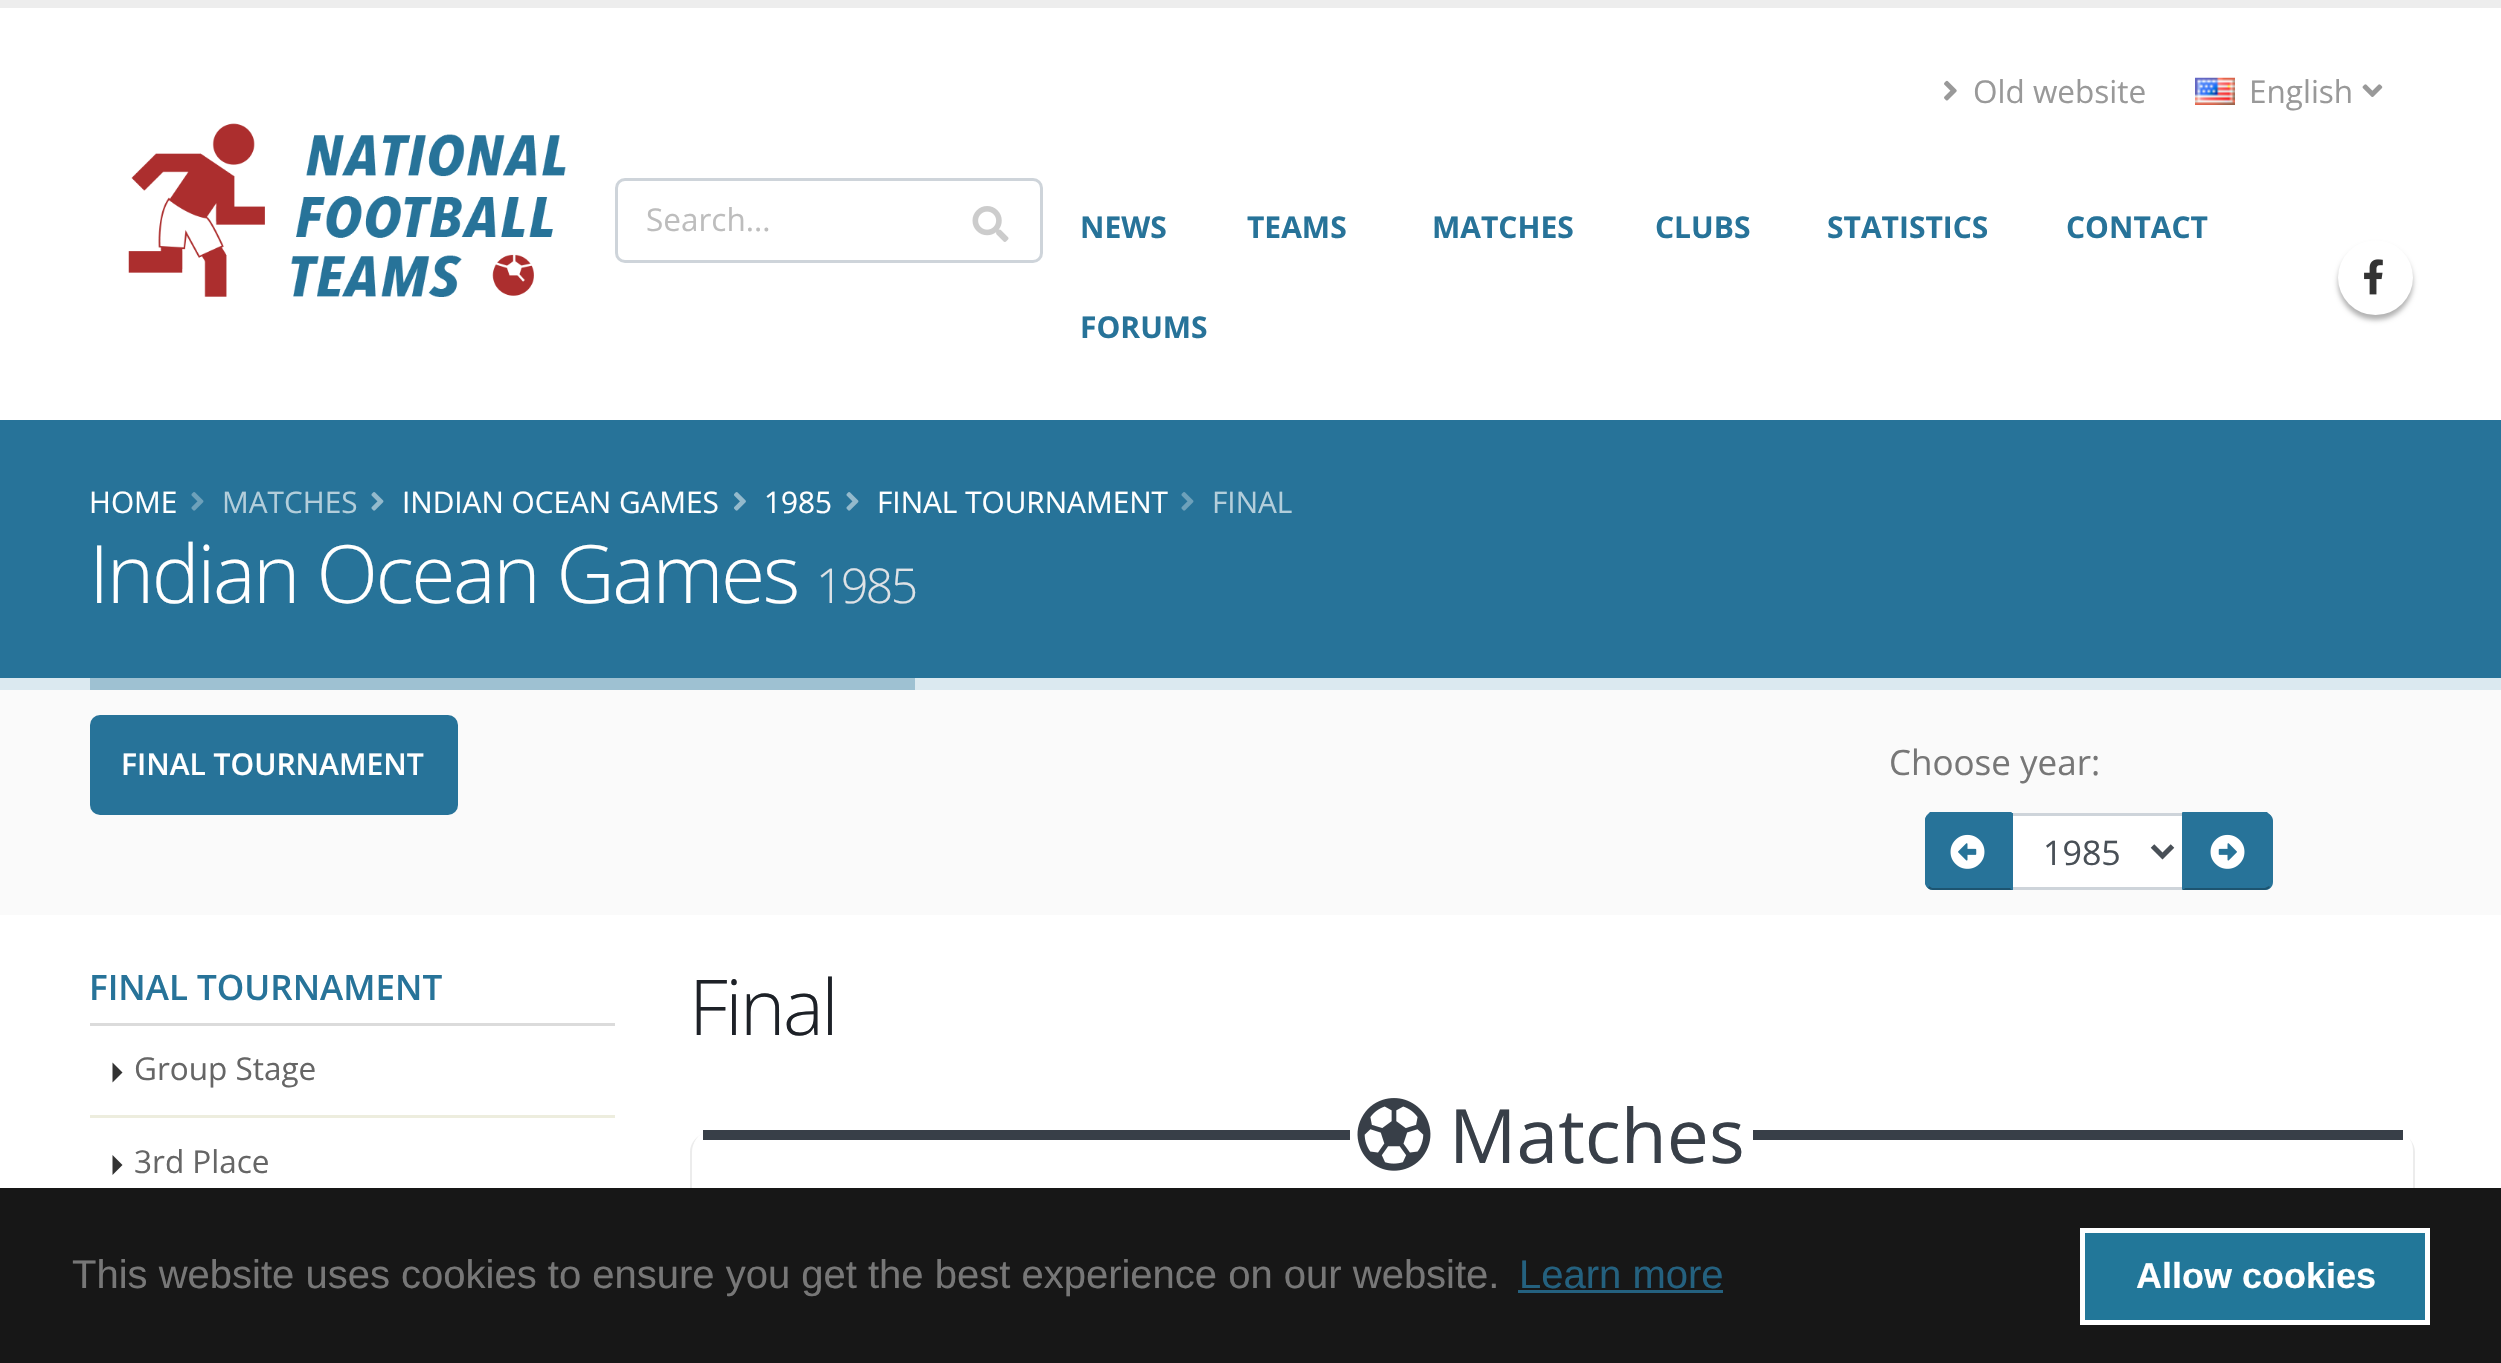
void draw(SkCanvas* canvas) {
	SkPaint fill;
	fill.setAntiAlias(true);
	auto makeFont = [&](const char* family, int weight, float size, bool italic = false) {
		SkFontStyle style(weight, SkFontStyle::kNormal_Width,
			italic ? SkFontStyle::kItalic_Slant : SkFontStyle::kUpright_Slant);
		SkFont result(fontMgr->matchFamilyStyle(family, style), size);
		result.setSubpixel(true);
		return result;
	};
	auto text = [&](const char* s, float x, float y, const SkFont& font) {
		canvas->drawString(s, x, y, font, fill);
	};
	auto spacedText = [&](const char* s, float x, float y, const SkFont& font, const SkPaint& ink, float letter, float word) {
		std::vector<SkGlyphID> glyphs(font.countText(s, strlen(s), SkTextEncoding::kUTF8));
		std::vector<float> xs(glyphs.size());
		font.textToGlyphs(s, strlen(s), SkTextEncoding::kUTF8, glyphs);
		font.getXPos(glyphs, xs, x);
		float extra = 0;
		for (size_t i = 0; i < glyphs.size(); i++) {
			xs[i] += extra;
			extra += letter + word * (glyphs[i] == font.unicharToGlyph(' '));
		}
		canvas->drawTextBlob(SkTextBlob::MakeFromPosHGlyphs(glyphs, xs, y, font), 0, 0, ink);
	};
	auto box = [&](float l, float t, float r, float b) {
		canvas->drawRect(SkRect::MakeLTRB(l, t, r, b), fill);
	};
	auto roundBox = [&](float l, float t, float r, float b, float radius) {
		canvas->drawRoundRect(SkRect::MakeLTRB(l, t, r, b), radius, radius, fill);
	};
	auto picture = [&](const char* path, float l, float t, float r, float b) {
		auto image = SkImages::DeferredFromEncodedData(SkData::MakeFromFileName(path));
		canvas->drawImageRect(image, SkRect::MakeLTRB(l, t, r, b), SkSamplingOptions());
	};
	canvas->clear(0xFFFFFFFF);
	fill.setColor(0xFFEDEDED);
	box(0, 0, 2501, 8);
	picture("image0.png", 128, 123, 566, 297);
	picture("image1.png", 1944, 80, 1957, 101);
	picture("image2.png", 2195, 77, 2235, 105);
	picture("image3.png", 2362, 84, 2383, 97);
	fill.setStyle(SkPaint::kStroke_Style);
	fill.setStrokeWidth(3);
	fill.setColor(0xFFCED4DA);
	canvas->drawRoundRect(SkRect::MakeLTRB(616.5f, 179.5f, 1041.5f, 261.5f), 8.5f, 8.5f, fill);
	picture("image4.png", 972, 206, 1009, 242);
	fill.setStyle(SkPaint::kFill_Style);
	fill.setColor(0x4D000000);
	fill.setMaskFilter(SkMaskFilter::MakeBlur(kNormal_SkBlurStyle, 2.5f));
	canvas->drawRoundRect(SkRect::MakeLTRB(2338, 245, 2413, 320), 37.5f, 37.5f, fill);
	fill.setMaskFilter(nullptr);
	fill.setColor(0xFFFFFFFF);
	canvas->drawCircle(2375.5f, 277.5f, 37.5f, fill);
	picture("image5.png", 2364, 259, 2383, 295);
	fill.setColor(0xFF277399);
	box(0, 420, 2501, 678);
	fill.setColor(0xFFDBE9F0);
	box(0, 678, 2501, 690);
	picture("image6.png", 191, 492, 204, 511);
	picture("image7.png", 371, 492, 384, 511);
	picture("image8.png", 734, 492, 746, 511);
	picture("image7.png", 846, 492, 859, 511);
	picture("image6.png", 1181, 492, 1194, 511);
	fill.setColor(0xFF9EC1D2);
	box(90, 678, 915, 690);
	fill.setColor(0xFFFAFAFA);
	box(0, 690, 2501, 915);
	fill.setColor(0xFF277399);
	roundBox(90, 715, 458, 815, 10);
	fill.setColor(0xFFFFFFFF);
	canvas->drawRect(SkRect::MakeLTRB(2011.5f, 814.5f, 2183.5f, 888.5f), fill);
	fill.setStyle(SkPaint::kStroke_Style);
	fill.setColor(0xFFCED4DA);
	canvas->drawRect(SkRect::MakeLTRB(2011.5f, 814.5f, 2183.5f, 888.5f), fill);
	fill.setStyle(SkPaint::kFill_Style);
	fill.setColor(0xFF277399);
	canvas->drawPath(SkPathBuilder().moveTo(1933, 813).lineTo(2013, 813).lineTo(2013, 890).lineTo(1933, 890).cubicTo(1928.5f, 890, 1925, 886.5f, 1925, 882).lineTo(1925, 821).cubicTo(1925, 816.5f, 1928.5f, 813, 1933, 813).close().detach(), fill);
	canvas->drawPath(SkPathBuilder().moveTo(1933, 815).cubicTo(1931, 815, 1930, 816, 1929, 817).lineTo(1927, 815).lineTo(1930, 812).lineTo(2012, 812).lineTo(2010, 815).close().detach(), fill);
	fill.setColor(0xFF1D5470);
	canvas->drawPath(SkPathBuilder().moveTo(1933, 890).lineTo(2012, 890).lineTo(2010, 888).lineTo(1932, 888).lineTo(1929, 886).lineTo(1928, 888).cubicTo(1929, 889, 1931, 890, 1933, 890).close().detach(), fill);
	fill.setColor(0xFF277399);
	canvas->drawPath(SkPathBuilder().moveTo(1925, 820).lineTo(1925, 882).cubicTo(1925, 884, 1926, 886, 1928, 888).lineTo(1929, 886).cubicTo(1928, 885, 1928, 883, 1928, 882).lineTo(1928, 820).cubicTo(1928, 819, 1928, 817, 1929, 817).lineTo(1927, 815).cubicTo(1926, 816, 1925, 818, 1925, 820).close().detach(), fill);
	picture("image9.png", 1950, 834, 1985, 869);
	fill.setStyle(SkPaint::kStroke_Style);
	fill.setStrokeWidth(5);
	fill.setColor(0xFF495057);
	canvas->drawPath(SkPathBuilder().moveTo(2152.5f, 846).lineTo(2162.5f, 856).lineTo(2172.5f, 846).detach(), fill);
	fill.setStyle(SkPaint::kFill_Style);
	fill.setColor(0xFF277399);
	canvas->drawPath(SkPathBuilder().moveTo(2183, 813).lineTo(2265, 813).cubicTo(2269.5f, 813, 2273, 816.5f, 2273, 821).lineTo(2273, 882).cubicTo(2273, 886.5f, 2269.5f, 890, 2265, 890).lineTo(2183, 890).close().detach(), fill);
	canvas->drawPath(SkPathBuilder().moveTo(2185, 815).lineTo(2182, 812).lineTo(2267, 812).lineTo(2270, 815).lineTo(2269, 816).cubicTo(2268, 816, 2266, 815, 2264, 815).close().detach(), fill);
	canvas->drawPath(SkPathBuilder().moveTo(2270, 815).cubicTo(2271, 816, 2272, 818, 2272, 820).lineTo(2272, 882).cubicTo(2272, 884, 2271, 886, 2270, 887).lineTo(2269, 886).cubicTo(2271, 883, 2270, 874, 2270, 872).lineTo(2270, 819).lineTo(2269, 816).close().detach(), fill);
	fill.setColor(0xFF1D5470);
	canvas->drawPath(SkPathBuilder().moveTo(2182, 890).lineTo(2264, 890).cubicTo(2267, 890, 2269, 889, 2270, 887).lineTo(2269, 886).lineTo(2265, 888).lineTo(2185, 888).close().detach(), fill);
	fill.setColor(0xFF277399);
	canvas->drawPath(SkPathBuilder().moveTo(2185, 815).lineTo(2182, 812).lineTo(2182, 890).lineTo(2185, 888).close().detach(), fill);
	picture("image10.png", 2210, 834, 2245, 869);
	fill.setColor(0xFFDBDBDB);
	box(90, 1023, 615, 1026);
	fill.setColor(0xFFEDEDDE);
	box(90, 1115, 615, 1118);
	fill.setColor(0xFF333333);
	canvas->drawPath(SkPathBuilder().moveTo(112.5f, 1082.5f).lineTo(112.5f, 1062.5f).lineTo(122.5f, 1072.5f).close().detach(), fill);
	canvas->drawPath(SkPathBuilder().moveTo(112.5f, 1175).lineTo(112.5f, 1155).lineTo(122.5f, 1165).close().detach(), fill);
	fill.setColor(0xFFECECEC);
	canvas->drawPath(SkPathBuilder().moveTo(2407, 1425).cubicTo(2410, 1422, 2412, 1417, 2412, 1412).lineTo(2412, 1152).cubicTo(2412, 1143, 2407, 1135, 2399, 1132).cubicTo(2408, 1135, 2415, 1143, 2415, 1152).lineTo(2415, 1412).cubicTo(2415, 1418, 2413, 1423, 2409, 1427).close().detach(), fill);
	canvas->drawPath(SkPathBuilder().moveTo(706, 1132).cubicTo(698, 1135, 692, 1143, 692, 1152).lineTo(692, 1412).cubicTo(692, 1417, 694, 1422, 698, 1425).lineTo(696, 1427).cubicTo(692, 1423, 690, 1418, 690, 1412).lineTo(690, 1152).cubicTo(690, 1143, 697, 1135, 706, 1132).close().detach(), fill);
	fill.setColor(0xFFFFFFFF);
	roundBox(693, 1130, 2413, 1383, 20);
	fill.setColor(0xFF383F48);
	box(703, 1130, 2403, 1140);
	fill.setColor(0xFFFFFFFF);
	box(1350, 1130, 1753, 1140);
	picture("image11.png", 1357, 1098, 1431, 1171);
	fill.setColor(0xFF171717);
	box(0, 1188, 2501, 1363);
	fill.setColor(0xFF24617F);
	box(1518, 1290, 1723, 1293);
	fill.setColor(0xFF227799);
	canvas->drawRect(SkRect::MakeLTRB(2082.5f, 1230.5f, 2427.5f, 1322.5f), fill);
	fill.setStyle(SkPaint::kStroke_Style);
	fill.setColor(0xFFFFFFFF);
	canvas->drawRect(SkRect::MakeLTRB(2082.5f, 1230.5f, 2427.5f, 1322.5f), fill);
	auto font1 = makeFont("Open Sans", 400, 31.5f);
	fill.setStyle(SkPaint::kFill_Style);
	fill.setColor(0xFF999999);
	text("Old website", 1973, 103, font1);
	text("English", 2249, 103, font1);
	fill.setColor(0xFFBDBDBD);
	text("Search...", 646, 231, font1);
	auto font2 = makeFont("Open Sans", 700, 30);
	fill.setColor(0xFF277399);
	text("NEWS", 1080, 238, font2);
	text("TEAMS", 1247, 238, font2);
	text("MATCHES", 1432, 238, font2);
	text("CLUBS", 1655, 238, font2);
	text("STATISTICS", 1827, 238, font2);
	text("CONTACT", 2066, 238, font2);
	text("FORUMS", 1080, 338, font2);
	auto font3 = makeFont("Open Sans", 400, 29.75f);
	fill.setColor(0xFFFFFFFF);
	text("HOME", 89, 513, font3);
	fill.setColor(0xFFB3CEDB);
	text("MATCHES", 222, 513, font3);
	fill.setColor(0xFFFFFFFF);
	text("INDIAN OCEAN GAMES", 402, 513, font3);
	text("1985", 764, 513, font3);
	text("FINAL TOURNAMENT", 877, 513, font3);
	fill.setColor(0xFFB3CEDB);
	text("FINAL", 1212, 513, font3);
	auto font4 = makeFont("Open Sans", 300, 80.5f);
	fill.setColor(0xFFFFFFFF);
	spacedText("Indian Ocean Games", 89, 603, font4, fill, -2.5f, 0);
	auto font5 = makeFont("Open Sans", 300, 48);
	fill.setColor(0xFFDEE2E6);
	spacedText("1985", 816, 603, font5, fill, -2.5f, 0);
	auto font6 = makeFont("Open Sans", 600, 30);
	fill.setColor(0xFFFFFFFF);
	text("FINAL TOURNAMENT", 121, 775, font6);
	auto font7 = makeFont("Open Sans", 400, 35);
	fill.setColor(0xFF777777);
	text("Choose year:", 1889, 775, font7);
	auto font8 = makeFont("Open Sans", 400, 34);
	fill.setColor(0xFF495057);
	text("1985", 2043, 865, font8);
	auto font9 = makeFont("Open Sans", 600, 35);
	fill.setColor(0xFF277399);
	text("FINAL TOURNAMENT", 89, 1000, font9);
	fill.setColor(0xFF666666);
	text("Group Stage", 134, 1080, font1);
	text("3rd Place", 134, 1173, font1);
	auto font10 = makeFont("Open Sans", 300, 77);
	fill.setColor(0xFF1D2127);
	spacedText("Final", 689, 1035, font10, fill, -2.5f, 0);
	auto font11 = makeFont("Open Sans", 400, 75);
	fill.setColor(0xFF383F48);
	text("Matches", 1449, 1163, font11);
	auto font12 = makeFont("Liberation Sans", 400, 40);
	fill.setColor(0xFF777777);
	text("This website uses cookies to ensure you get the best experience on our website.", 72, 1288, font12);
	fill.setColor(0xFF24617F);
	text("Learn more", 1519, 1288, font12);
	auto font13 = makeFont("Liberation Sans", 700, 36);
	fill.setColor(0xFFFFFFFF);
	text("Allow cookies", 2136, 1288, font13);
}
